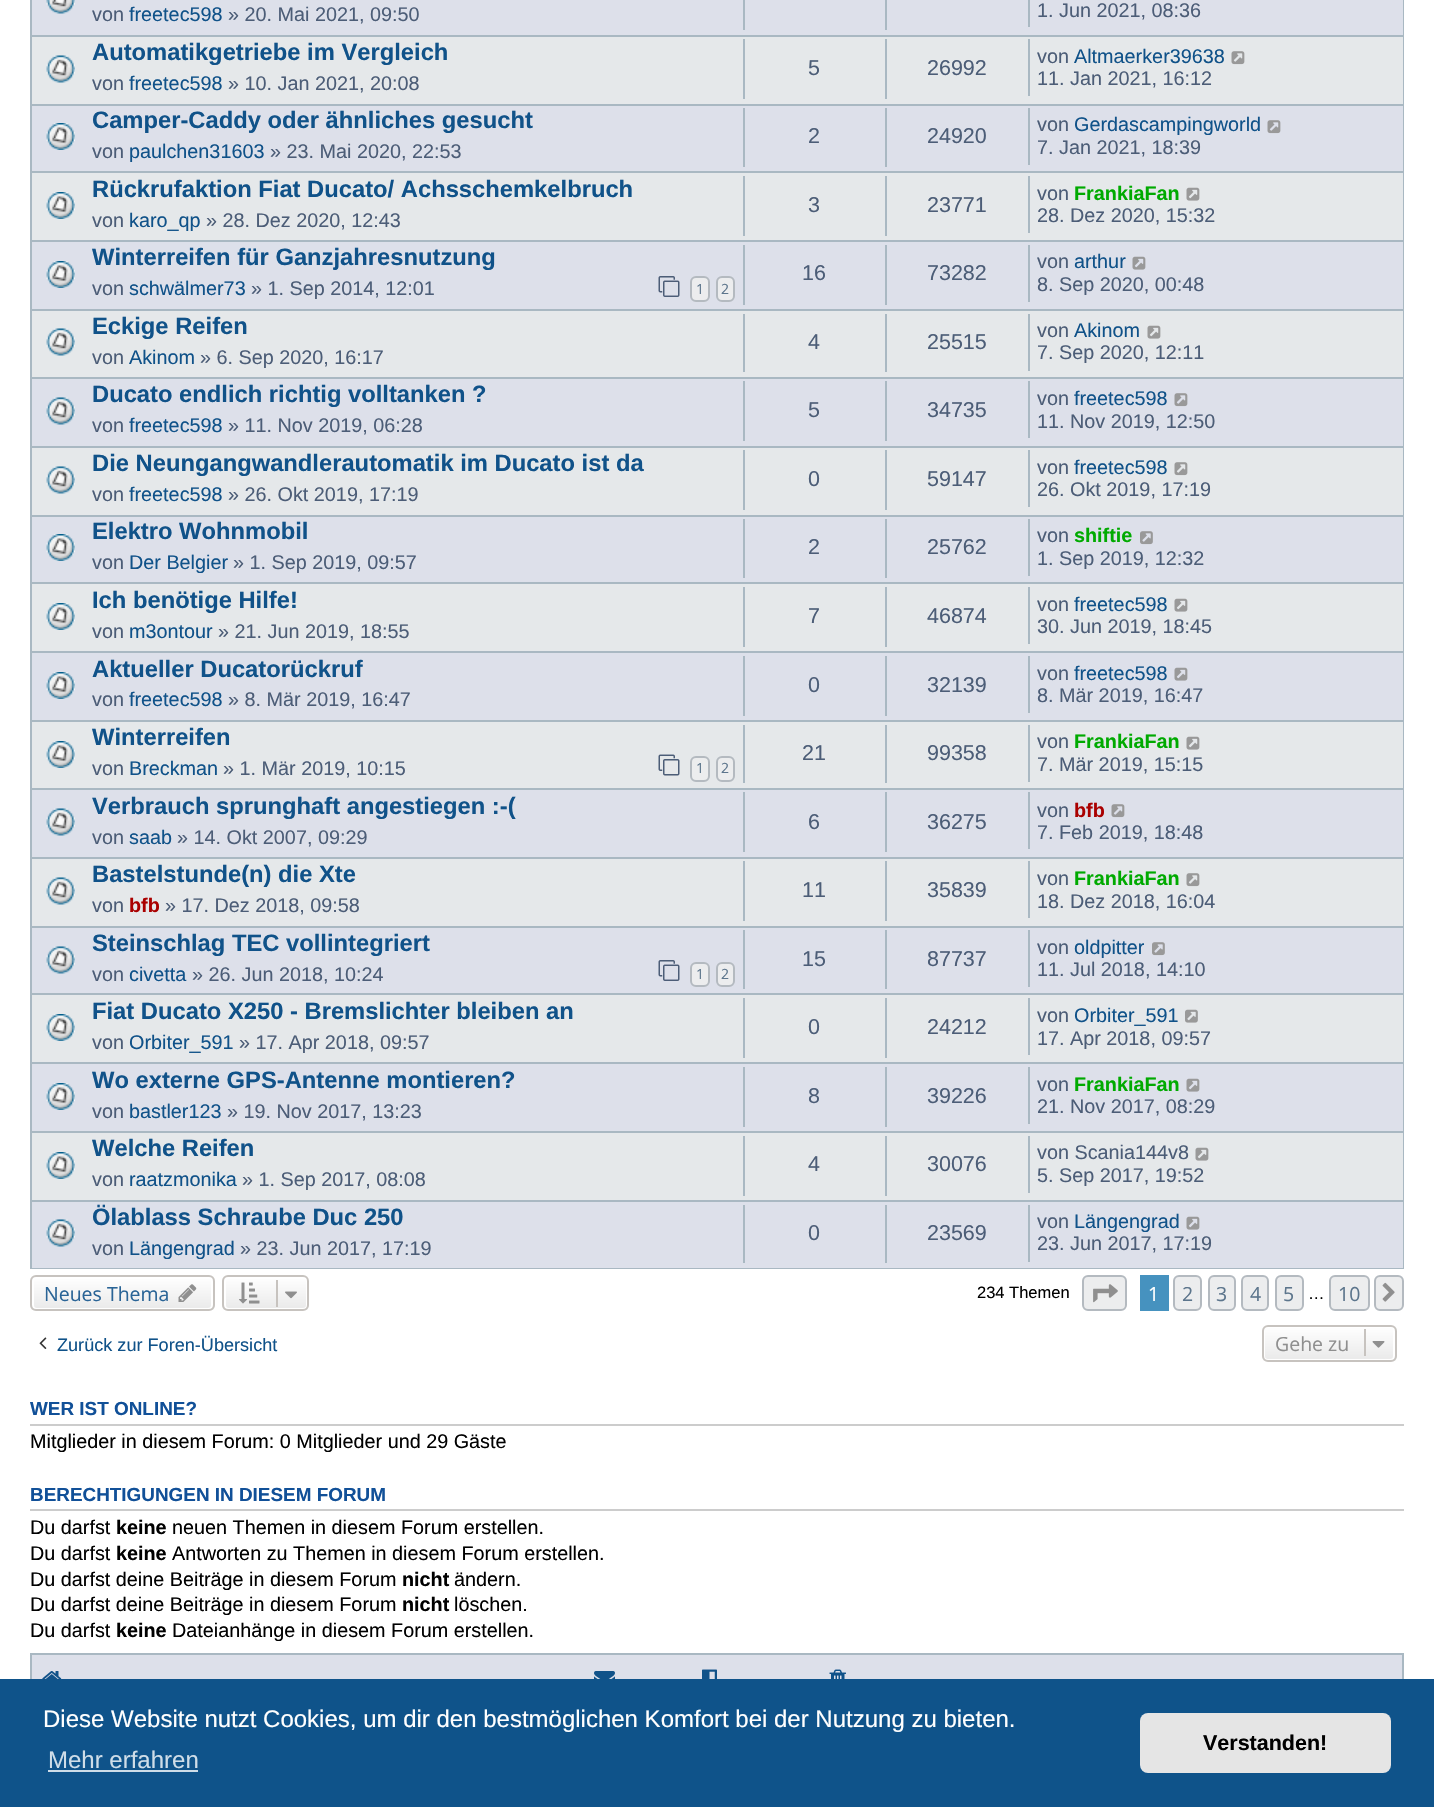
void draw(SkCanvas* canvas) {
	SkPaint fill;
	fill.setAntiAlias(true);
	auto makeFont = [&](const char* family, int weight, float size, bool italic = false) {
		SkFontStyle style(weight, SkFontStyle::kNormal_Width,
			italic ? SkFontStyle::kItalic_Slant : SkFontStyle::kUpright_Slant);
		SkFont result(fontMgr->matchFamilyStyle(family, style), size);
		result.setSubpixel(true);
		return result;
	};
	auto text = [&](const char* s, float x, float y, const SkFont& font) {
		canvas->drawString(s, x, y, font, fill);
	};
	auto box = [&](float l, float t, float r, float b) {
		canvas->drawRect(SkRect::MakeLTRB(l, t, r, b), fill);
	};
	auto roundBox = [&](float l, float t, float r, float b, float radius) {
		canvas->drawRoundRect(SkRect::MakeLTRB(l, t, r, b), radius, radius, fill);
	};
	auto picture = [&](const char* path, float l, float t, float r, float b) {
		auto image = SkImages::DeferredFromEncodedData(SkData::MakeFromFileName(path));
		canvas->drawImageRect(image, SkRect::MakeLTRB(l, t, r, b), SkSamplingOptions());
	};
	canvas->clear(0xFFFFFFFF);
	fill.setStyle(SkPaint::kStroke_Style);
	fill.setStrokeWidth(2);
	fill.setColor(0xFFA9B8C2);
	canvas->drawRect(SkRect::MakeLTRB(31, -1, 1403, 1268), fill);
	fill.setStyle(SkPaint::kFill_Style);
	fill.setColor(0xFFDDE0EA);
	box(32, 0, 1403, 35);
	picture("image0.png", 46, 0, 75, 14);
	fill.setColor(0xFFA9B8C2);
	box(743, 0, 745, 30);
	box(885, 0, 887, 30);
	box(1028, 0, 1030, 27);
	fill.setColor(0xFFE5E8EA);
	box(32, 37, 1403, 104);
	fill.setColor(0xFFA9B8C2);
	box(32, 35, 1403, 37);
	picture("image1.png", 46, 55, 75, 83);
	box(743, 39, 745, 99);
	box(885, 39, 887, 99);
	box(1028, 39, 1030, 96);
	picture("image2.png", 1231, 51, 1245, 65);
	fill.setColor(0xFFDDE0EA);
	box(32, 106, 1403, 171);
	fill.setColor(0xFFA9B8C2);
	box(32, 104, 1403, 106);
	picture("image3.png", 46, 123, 75, 150);
	box(743, 108, 745, 167);
	box(885, 108, 887, 167);
	box(1028, 108, 1030, 165);
	picture("image4.png", 1267, 120, 1281, 134);
	fill.setColor(0xFFE5E8EA);
	box(32, 173, 1403, 240);
	fill.setColor(0xFFA9B8C2);
	box(32, 171, 1403, 173);
	picture("image5.png", 46, 192, 75, 219);
	box(743, 176, 745, 236);
	box(885, 176, 887, 236);
	box(1028, 176, 1030, 233);
	picture("image6.png", 1186, 187, 1200, 201);
	fill.setColor(0xFFDDE0EA);
	box(32, 242, 1403, 309);
	fill.setColor(0xFFA9B8C2);
	box(32, 240, 1403, 242);
	picture("image3.png", 46, 261, 75, 288);
	picture("image7.png", 658, 276, 680, 297);
	fill.setColor(0xFFECEDEE);
	canvas->drawRoundRect(SkRect::MakeLTRB(691, 277, 709, 301), 5, 5, fill);
	fill.setStyle(SkPaint::kStroke_Style);
	fill.setColor(0xFFB4BAC0);
	canvas->drawRoundRect(SkRect::MakeLTRB(691, 277, 709, 301), 5, 5, fill);
	fill.setStyle(SkPaint::kFill_Style);
	fill.setColor(0xFFECEDEE);
	canvas->drawRoundRect(SkRect::MakeLTRB(717, 277, 734, 301), 5, 5, fill);
	fill.setStyle(SkPaint::kStroke_Style);
	fill.setColor(0xFFB4BAC0);
	canvas->drawRoundRect(SkRect::MakeLTRB(717, 277, 734, 301), 5, 5, fill);
	fill.setStyle(SkPaint::kFill_Style);
	fill.setColor(0xFFA9B8C2);
	box(743, 245, 745, 305);
	box(885, 245, 887, 305);
	box(1028, 245, 1030, 302);
	picture("image8.png", 1132, 256, 1146, 270);
	fill.setColor(0xFFE5E8EA);
	box(32, 311, 1403, 377);
	fill.setColor(0xFFA9B8C2);
	box(32, 309, 1403, 311);
	picture("image1.png", 46, 328, 75, 356);
	box(743, 314, 745, 372);
	box(885, 314, 887, 372);
	box(1028, 314, 1030, 371);
	picture("image6.png", 1147, 325, 1161, 339);
	fill.setColor(0xFFDDE0EA);
	box(32, 379, 1403, 446);
	fill.setColor(0xFFA9B8C2);
	box(32, 377, 1403, 379);
	picture("image9.png", 46, 397, 75, 425);
	box(743, 381, 745, 441);
	box(885, 381, 887, 441);
	box(1028, 381, 1030, 438);
	picture("image4.png", 1174, 393, 1188, 407);
	fill.setColor(0xFFE5E8EA);
	box(32, 448, 1403, 515);
	fill.setColor(0xFFA9B8C2);
	box(32, 446, 1403, 448);
	picture("image1.png", 46, 466, 75, 494);
	box(743, 450, 745, 510);
	box(885, 450, 887, 510);
	box(1028, 450, 1030, 507);
	picture("image2.png", 1174, 462, 1188, 476);
	fill.setColor(0xFFDDE0EA);
	box(32, 517, 1403, 582);
	fill.setColor(0xFFA9B8C2);
	box(32, 515, 1403, 517);
	picture("image3.png", 46, 534, 75, 561);
	box(743, 519, 745, 578);
	box(885, 519, 887, 578);
	box(1028, 519, 1030, 576);
	picture("image10.png", 1140, 531, 1153, 545);
	fill.setColor(0xFFE5E8EA);
	box(32, 584, 1403, 651);
	fill.setColor(0xFFA9B8C2);
	box(32, 582, 1403, 584);
	picture("image5.png", 46, 603, 75, 630);
	box(743, 587, 745, 647);
	box(885, 587, 887, 647);
	box(1028, 587, 1030, 644);
	picture("image6.png", 1174, 598, 1188, 612);
	fill.setColor(0xFFDDE0EA);
	box(32, 653, 1403, 720);
	fill.setColor(0xFFA9B8C2);
	box(32, 651, 1403, 653);
	picture("image3.png", 46, 672, 75, 699);
	box(743, 656, 745, 716);
	box(885, 656, 887, 716);
	box(1028, 656, 1030, 713);
	picture("image8.png", 1174, 667, 1188, 681);
	fill.setColor(0xFFE5E8EA);
	box(32, 722, 1403, 788);
	fill.setColor(0xFFA9B8C2);
	box(32, 720, 1403, 722);
	picture("image11.png", 46, 741, 75, 768);
	picture("image12.png", 658, 754, 680, 776);
	fill.setColor(0xFFECEDEE);
	canvas->drawRoundRect(SkRect::MakeLTRB(691, 757, 709, 781), 5, 5, fill);
	fill.setStyle(SkPaint::kStroke_Style);
	fill.setColor(0xFFB4BAC0);
	canvas->drawRoundRect(SkRect::MakeLTRB(691, 757, 709, 781), 5, 5, fill);
	fill.setStyle(SkPaint::kFill_Style);
	fill.setColor(0xFFECEDEE);
	canvas->drawRoundRect(SkRect::MakeLTRB(717, 757, 734, 781), 5, 5, fill);
	fill.setStyle(SkPaint::kStroke_Style);
	fill.setColor(0xFFB4BAC0);
	canvas->drawRoundRect(SkRect::MakeLTRB(717, 757, 734, 781), 5, 5, fill);
	fill.setStyle(SkPaint::kFill_Style);
	fill.setColor(0xFFA9B8C2);
	box(743, 725, 745, 783);
	box(885, 725, 887, 783);
	box(1028, 725, 1030, 782);
	picture("image6.png", 1186, 736, 1200, 750);
	fill.setColor(0xFFDDE0EA);
	box(32, 790, 1403, 857);
	fill.setColor(0xFFA9B8C2);
	box(32, 788, 1403, 790);
	picture("image9.png", 46, 808, 75, 836);
	box(743, 792, 745, 852);
	box(885, 792, 887, 852);
	box(1028, 792, 1030, 849);
	picture("image4.png", 1111, 804, 1125, 818);
	fill.setColor(0xFFE5E8EA);
	box(32, 859, 1403, 926);
	fill.setColor(0xFFA9B8C2);
	box(32, 857, 1403, 859);
	picture("image1.png", 46, 877, 75, 905);
	box(743, 861, 745, 921);
	box(885, 861, 887, 921);
	box(1028, 861, 1030, 918);
	picture("image2.png", 1186, 873, 1200, 887);
	fill.setColor(0xFFDDE0EA);
	box(32, 928, 1403, 993);
	fill.setColor(0xFFA9B8C2);
	box(32, 926, 1403, 928);
	picture("image9.png", 46, 946, 75, 974);
	picture("image7.png", 658, 960, 680, 981);
	fill.setColor(0xFFECEDEE);
	canvas->drawRoundRect(SkRect::MakeLTRB(691, 963, 709, 986), 5, 5, fill);
	fill.setStyle(SkPaint::kStroke_Style);
	fill.setColor(0xFFB4BAC0);
	canvas->drawRoundRect(SkRect::MakeLTRB(691, 963, 709, 986), 5, 5, fill);
	fill.setStyle(SkPaint::kFill_Style);
	fill.setColor(0xFFECEDEE);
	canvas->drawRoundRect(SkRect::MakeLTRB(717, 963, 734, 986), 5, 5, fill);
	fill.setStyle(SkPaint::kStroke_Style);
	fill.setColor(0xFFB4BAC0);
	canvas->drawRoundRect(SkRect::MakeLTRB(717, 963, 734, 986), 5, 5, fill);
	fill.setStyle(SkPaint::kFill_Style);
	fill.setColor(0xFFA9B8C2);
	box(743, 930, 745, 989);
	box(885, 930, 887, 989);
	box(1028, 930, 1030, 987);
	picture("image10.png", 1152, 942, 1165, 956);
	fill.setColor(0xFFE5E8EA);
	box(32, 995, 1403, 1062);
	fill.setColor(0xFFA9B8C2);
	box(32, 993, 1403, 995);
	picture("image5.png", 46, 1014, 75, 1041);
	box(743, 998, 745, 1058);
	box(885, 998, 887, 1058);
	box(1028, 998, 1030, 1055);
	picture("image13.png", 1185, 1009, 1198, 1023);
	fill.setColor(0xFFDDE0EA);
	box(32, 1064, 1403, 1131);
	fill.setColor(0xFFA9B8C2);
	box(32, 1062, 1403, 1064);
	picture("image3.png", 46, 1083, 75, 1110);
	box(743, 1067, 745, 1127);
	box(885, 1067, 887, 1127);
	box(1028, 1067, 1030, 1124);
	picture("image8.png", 1186, 1078, 1200, 1092);
	fill.setColor(0xFFE5E8EA);
	box(32, 1133, 1403, 1200);
	fill.setColor(0xFFA9B8C2);
	box(32, 1131, 1403, 1133);
	picture("image5.png", 46, 1152, 75, 1179);
	box(743, 1136, 745, 1196);
	box(885, 1136, 887, 1196);
	box(1028, 1136, 1030, 1193);
	picture("image6.png", 1195, 1147, 1209, 1161);
	fill.setColor(0xFFDDE0EA);
	box(32, 1202, 1403, 1268);
	fill.setColor(0xFFA9B8C2);
	box(32, 1200, 1403, 1202);
	picture("image9.png", 46, 1219, 75, 1247);
	box(743, 1205, 745, 1263);
	box(885, 1205, 887, 1263);
	box(1028, 1205, 1030, 1262);
	picture("image8.png", 1186, 1216, 1200, 1230);
	canvas->save();
	canvas->clipPath(SkPathBuilder().moveTo(36, 1275).lineTo(209, 1275).cubicTo(212.5f, 1275, 215, 1277.5f, 215, 1281).lineTo(215, 1305).cubicTo(215, 1308.5f, 212.5f, 1311, 209, 1311).lineTo(36, 1311).cubicTo(32.5f, 1311, 30, 1308.5f, 30, 1305).lineTo(30, 1281).cubicTo(30, 1277.5f, 32.5f, 1275, 36, 1275).close().detach(), true);
	{
		const SkColor colors[] = {0xFFFFFFFF, 0xFFE9E9E9};
		const float stops[] = {0, 1};
		const SkPoint ends[] = {{122, 1277}, {122, 1310}};
		fill.setShader(SkGradientShader::MakeLinear(ends, colors, stops, 2, SkTileMode::kClamp));
		fill.setAlpha(255);
	}
	box(30, 1277, 215, 1310);
	canvas->restore();
	fill.setStyle(SkPaint::kStroke_Style);
	fill.setShader(nullptr);
	fill.setColor(0xFFFFFFFF);
	canvas->drawRoundRect(SkRect::MakeLTRB(33, 1278, 212, 1309), 4, 4, fill);
	fill.setColor(0xFFC7C3BF);
	canvas->drawRoundRect(SkRect::MakeLTRB(31, 1276, 214, 1310), 5, 5, fill);
	picture("image14.png", 178, 1284, 197, 1302);
	canvas->save();
	canvas->clipPath(SkPathBuilder().moveTo(228, 1275).lineTo(303, 1275).cubicTo(306.5f, 1275, 309, 1277.5f, 309, 1281).lineTo(309, 1305).cubicTo(309, 1308.5f, 306.5f, 1311, 303, 1311).lineTo(228, 1311).cubicTo(224.5f, 1311, 222, 1308.5f, 222, 1305).lineTo(222, 1281).cubicTo(222, 1277.5f, 224.5f, 1275, 228, 1275).close().detach(), true);
	fill.setStyle(SkPaint::kFill_Style);
	{
		const SkColor colors[] = {0xFFFFFFFF, 0xFFE9E9E9};
		const float stops[] = {0, 1};
		const SkPoint ends[] = {{266, 1277}, {266, 1310}};
		fill.setShader(SkGradientShader::MakeLinear(ends, colors, stops, 2, SkTileMode::kClamp));
		fill.setAlpha(255);
	}
	box(222, 1277, 309, 1310);
	canvas->restore();
	fill.setStyle(SkPaint::kStroke_Style);
	fill.setShader(nullptr);
	fill.setColor(0xFFFFFFFF);
	canvas->drawRoundRect(SkRect::MakeLTRB(225, 1278, 307, 1309), 4, 4, fill);
	fill.setColor(0xFFC7C3BF);
	canvas->drawRoundRect(SkRect::MakeLTRB(223, 1276, 308, 1310), 5, 5, fill);
	picture("image15.png", 239, 1282, 260, 1304);
	fill.setStyle(SkPaint::kFill_Style);
	box(276, 1280, 278, 1307);
	picture("image16.png", 285, 1291, 297, 1299);
	fill.setColor(0xFFECEDEE);
	canvas->drawRoundRect(SkRect::MakeLTRB(1083, 1276, 1126, 1310), 5, 5, fill);
	fill.setStyle(SkPaint::kStroke_Style);
	fill.setColor(0xFFB4BAC0);
	canvas->drawRoundRect(SkRect::MakeLTRB(1083, 1276, 1126, 1310), 5, 5, fill);
	picture("image17.png", 1093, 1284, 1118, 1303);
	fill.setStyle(SkPaint::kFill_Style);
	fill.setColor(0xFF4692BF);
	box(1140, 1275, 1169, 1311);
	fill.setColor(0xFFECEDEE);
	canvas->drawRoundRect(SkRect::MakeLTRB(1174, 1276, 1201, 1310), 5, 5, fill);
	fill.setStyle(SkPaint::kStroke_Style);
	fill.setColor(0xFFB4BAC0);
	canvas->drawRoundRect(SkRect::MakeLTRB(1174, 1276, 1201, 1310), 5, 5, fill);
	fill.setStyle(SkPaint::kFill_Style);
	fill.setColor(0xFFECEDEE);
	canvas->drawRoundRect(SkRect::MakeLTRB(1209, 1276, 1235, 1310), 5, 5, fill);
	fill.setStyle(SkPaint::kStroke_Style);
	fill.setColor(0xFFB4BAC0);
	canvas->drawRoundRect(SkRect::MakeLTRB(1209, 1276, 1235, 1310), 5, 5, fill);
	fill.setStyle(SkPaint::kFill_Style);
	fill.setColor(0xFFECEDEE);
	canvas->drawRoundRect(SkRect::MakeLTRB(1242, 1276, 1268, 1310), 5, 5, fill);
	fill.setStyle(SkPaint::kStroke_Style);
	fill.setColor(0xFFB4BAC0);
	canvas->drawRoundRect(SkRect::MakeLTRB(1242, 1276, 1268, 1310), 5, 5, fill);
	fill.setStyle(SkPaint::kFill_Style);
	fill.setColor(0xFFECEDEE);
	canvas->drawRoundRect(SkRect::MakeLTRB(1276, 1276, 1303, 1310), 5, 5, fill);
	fill.setStyle(SkPaint::kStroke_Style);
	fill.setColor(0xFFB4BAC0);
	canvas->drawRoundRect(SkRect::MakeLTRB(1276, 1276, 1303, 1310), 5, 5, fill);
	fill.setStyle(SkPaint::kFill_Style);
	fill.setColor(0xFFECEDEE);
	canvas->drawRoundRect(SkRect::MakeLTRB(1330, 1276, 1369, 1310), 5, 5, fill);
	fill.setStyle(SkPaint::kStroke_Style);
	fill.setColor(0xFFB4BAC0);
	canvas->drawRoundRect(SkRect::MakeLTRB(1330, 1276, 1369, 1310), 5, 5, fill);
	fill.setStyle(SkPaint::kFill_Style);
	fill.setColor(0xFFECEDEE);
	canvas->drawRoundRect(SkRect::MakeLTRB(1375, 1276, 1403, 1310), 5, 5, fill);
	fill.setStyle(SkPaint::kStroke_Style);
	fill.setColor(0xFFB4BAC0);
	canvas->drawRoundRect(SkRect::MakeLTRB(1375, 1276, 1403, 1310), 5, 5, fill);
	picture("image18.png", 1382, 1282, 1395, 1302);
	picture("image19.png", 39, 1337, 47, 1349);
	canvas->save();
	canvas->clipPath(SkPathBuilder().moveTo(1268, 1325).lineTo(1391, 1325).cubicTo(1394.5f, 1325, 1397, 1327.5f, 1397, 1331).lineTo(1397, 1356).cubicTo(1397, 1359.5f, 1394.5f, 1362, 1391, 1362).lineTo(1268, 1362).cubicTo(1264.5f, 1362, 1262, 1359.5f, 1262, 1356).lineTo(1262, 1331).cubicTo(1262, 1327.5f, 1264.5f, 1325, 1268, 1325).close().detach(), true);
	fill.setStyle(SkPaint::kFill_Style);
	{
		const SkColor colors[] = {0xFFFFFFFF, 0xFFE9E9E9};
		const float stops[] = {0, 1};
		const SkPoint ends[] = {{1329, 1326}, {1329, 1361}};
		fill.setShader(SkGradientShader::MakeLinear(ends, colors, stops, 2, SkTileMode::kClamp));
		fill.setAlpha(255);
	}
	box(1262, 1326, 1397, 1361);
	canvas->restore();
	fill.setStyle(SkPaint::kStroke_Style);
	fill.setShader(nullptr);
	fill.setColor(0xFFFFFFFF);
	canvas->drawRoundRect(SkRect::MakeLTRB(1264, 1327, 1394, 1360), 4, 4, fill);
	fill.setColor(0xFFC7C3BF);
	canvas->drawRoundRect(SkRect::MakeLTRB(1263, 1326, 1396, 1361), 5, 5, fill);
	fill.setStyle(SkPaint::kFill_Style);
	box(1364, 1329, 1366, 1356);
	picture("image20.png", 1372, 1341, 1385, 1348);
	fill.setColor(0xFFCCCCCC);
	box(30, 1424, 1404, 1426);
	box(30, 1509, 1404, 1511);
	fill.setColor(0xFFDDE0EA);
	box(32, 1655, 1402, 1679);
	fill.setStyle(SkPaint::kStroke_Style);
	fill.setColor(0xFFA9B8C2);
	canvas->drawRect(SkRect::MakeLTRB(31, 1654, 1403, 1705), fill);
	picture("image21.png", 42, 1671, 62, 1679);
	picture("image22.png", 594, 1671, 615, 1679);
	picture("image23.png", 702, 1669, 717, 1679);
	picture("image24.png", 829, 1669, 846, 1679);
	fill.setStyle(SkPaint::kFill_Style);
	fill.setColor(0xFF0F538A);
	box(0, 1679, 1434, 1807);
	fill.setColor(0xFFCFDDE8);
	box(48, 1770, 198, 1772);
	fill.setColor(0xFFE5E5E5);
	roundBox(1140, 1713, 1391, 1773, 8);
	auto font1 = makeFont("Liberation Sans", 400, 19.8f);
	fill.setColor(0xFF4C5D77);
	text("von", 92, 21, font1);
	fill.setColor(0xFF105289);
	text("freetec598", 129, 21, font1);
	fill.setColor(0xFF4C5D77);
	text("» 20. Mai 2021, 09:50", 228, 21, font1);
	text("1. Jun 2021, 08:36", 1037, 17, font1);
	auto font2 = makeFont("Liberation Sans", 700, 23.75f);
	fill.setColor(0xFF105289);
	text("Automatikgetriebe im Vergleich", 92, 60, font2);
	fill.setColor(0xFF4C5D77);
	text("von", 92, 90, font1);
	fill.setColor(0xFF105289);
	text("freetec598", 129, 90, font1);
	fill.setColor(0xFF4C5D77);
	text("» 10. Jan 2021, 20:08", 228, 90, font1);
	auto font3 = makeFont("Liberation Sans", 400, 21.5f);
	text("5", 808, 75, font3);
	text("26992", 927, 75, font3);
	text("von", 1037, 63, font1);
	fill.setColor(0xFF105289);
	text("Altmaerker39638", 1074, 63, font1);
	fill.setColor(0xFF4C5D77);
	text("11. Jan 2021, 16:12", 1037, 85, font1);
	fill.setColor(0xFF105289);
	text("Camper-Caddy oder ähnliches gesucht", 92, 128, font2);
	fill.setColor(0xFF4C5D77);
	text("von", 92, 158, font1);
	fill.setColor(0xFF105289);
	text("paulchen31603", 129, 158, font1);
	fill.setColor(0xFF4C5D77);
	text("» 23. Mai 2020, 22:53", 270, 158, font1);
	text("2", 808, 143, font3);
	text("24920", 927, 143, font3);
	text("von", 1037, 131, font1);
	fill.setColor(0xFF105289);
	text("Gerdascampingworld", 1074, 131, font1);
	fill.setColor(0xFF4C5D77);
	text("7. Jan 2021, 18:39", 1037, 154, font1);
	fill.setColor(0xFF105289);
	text("Rückrufaktion Fiat Ducato/ Achsschemkelbruch", 92, 197, font2);
	fill.setColor(0xFF4C5D77);
	text("von", 92, 227, font1);
	fill.setColor(0xFF105289);
	text("karo_qp", 129, 227, font1);
	fill.setColor(0xFF4C5D77);
	text("» 28. Dez 2020, 12:43", 206, 227, font1);
	text("3", 808, 212, font3);
	text("23771", 927, 212, font3);
	text("von", 1037, 200, font1);
	auto font4 = makeFont("Liberation Sans", 700, 19.8f);
	fill.setColor(0xFF00AA00);
	text("FrankiaFan", 1074, 200, font4);
	fill.setColor(0xFF4C5D77);
	text("28. Dez 2020, 15:32", 1037, 222, font1);
	fill.setColor(0xFF105289);
	text("Winterreifen für Ganzjahresnutzung", 92, 265, font2);
	fill.setColor(0xFF4C5D77);
	text("von", 92, 295, font1);
	fill.setColor(0xFF105289);
	text("schwälmer73", 129, 295, font1);
	fill.setColor(0xFF4C5D77);
	text("» 1. Sep 2014, 12:01", 251, 295, font1);
	auto font5 = makeFont("Open Sans", 400, 14);
	fill.setColor(0xFF5C758C);
	text("1", 696, 294, font5);
	text("2", 721, 294, font5);
	fill.setColor(0xFF4C5D77);
	text("16", 802, 280, font3);
	text("73282", 927, 280, font3);
	text("von", 1037, 268, font1);
	fill.setColor(0xFF105289);
	text("arthur", 1074, 268, font1);
	fill.setColor(0xFF4C5D77);
	text("8. Sep 2020, 00:48", 1037, 291, font1);
	fill.setColor(0xFF105289);
	text("Eckige Reifen", 92, 334, font2);
	fill.setColor(0xFF4C5D77);
	text("von", 92, 364, font1);
	fill.setColor(0xFF105289);
	text("Akinom", 129, 364, font1);
	fill.setColor(0xFF4C5D77);
	text("» 6. Sep 2020, 16:17", 200, 364, font1);
	text("4", 808, 349, font3);
	text("25515", 927, 349, font3);
	text("von", 1037, 337, font1);
	fill.setColor(0xFF105289);
	text("Akinom", 1074, 337, font1);
	fill.setColor(0xFF4C5D77);
	text("7. Sep 2020, 12:11", 1037, 359, font1);
	fill.setColor(0xFF105289);
	text("Ducato endlich richtig volltanken ?", 92, 402, font2);
	fill.setColor(0xFF4C5D77);
	text("von", 92, 432, font1);
	fill.setColor(0xFF105289);
	text("freetec598", 129, 432, font1);
	fill.setColor(0xFF4C5D77);
	text("» 11. Nov 2019, 06:28", 228, 432, font1);
	text("5", 808, 417, font3);
	text("34735", 927, 417, font3);
	text("von", 1037, 405, font1);
	fill.setColor(0xFF105289);
	text("freetec598", 1074, 405, font1);
	fill.setColor(0xFF4C5D77);
	text("11. Nov 2019, 12:50", 1037, 428, font1);
	fill.setColor(0xFF105289);
	text("Die Neungangwandlerautomatik im Ducato ist da", 92, 471, font2);
	fill.setColor(0xFF4C5D77);
	text("von", 92, 501, font1);
	fill.setColor(0xFF105289);
	text("freetec598", 129, 501, font1);
	fill.setColor(0xFF4C5D77);
	text("» 26. Okt 2019, 17:19", 228, 501, font1);
	text("0", 808, 486, font3);
	text("59147", 927, 486, font3);
	text("von", 1037, 474, font1);
	fill.setColor(0xFF105289);
	text("freetec598", 1074, 474, font1);
	fill.setColor(0xFF4C5D77);
	text("26. Okt 2019, 17:19", 1037, 496, font1);
	fill.setColor(0xFF105289);
	text("Elektro Wohnmobil", 92, 539, font2);
	fill.setColor(0xFF4C5D77);
	text("von", 92, 569, font1);
	fill.setColor(0xFF105289);
	text("Der Belgier", 129, 569, font1);
	fill.setColor(0xFF4C5D77);
	text("» 1. Sep 2019, 09:57", 233, 569, font1);
	text("2", 808, 554, font3);
	text("25762", 927, 554, font3);
	text("von", 1037, 542, font1);
	fill.setColor(0xFF00AA00);
	text("shiftie", 1074, 542, font4);
	fill.setColor(0xFF4C5D77);
	text("1. Sep 2019, 12:32", 1037, 565, font1);
	fill.setColor(0xFF105289);
	text("Ich benötige Hilfe!", 92, 608, font2);
	fill.setColor(0xFF4C5D77);
	text("von", 92, 638, font1);
	fill.setColor(0xFF105289);
	text("m3ontour", 129, 638, font1);
	fill.setColor(0xFF4C5D77);
	text("» 21. Jun 2019, 18:55", 218, 638, font1);
	text("7", 808, 623, font3);
	text("46874", 927, 623, font3);
	text("von", 1037, 611, font1);
	fill.setColor(0xFF105289);
	text("freetec598", 1074, 611, font1);
	fill.setColor(0xFF4C5D77);
	text("30. Jun 2019, 18:45", 1037, 633, font1);
	fill.setColor(0xFF105289);
	text("Aktueller Ducatorückruf", 92, 677, font2);
	fill.setColor(0xFF4C5D77);
	text("von", 92, 706, font1);
	fill.setColor(0xFF105289);
	text("freetec598", 129, 706, font1);
	fill.setColor(0xFF4C5D77);
	text("» 8. Mär 2019, 16:47", 228, 706, font1);
	text("0", 808, 692, font3);
	text("32139", 927, 692, font3);
	text("von", 1037, 680, font1);
	fill.setColor(0xFF105289);
	text("freetec598", 1074, 680, font1);
	fill.setColor(0xFF4C5D77);
	text("8. Mär 2019, 16:47", 1037, 702, font1);
	fill.setColor(0xFF105289);
	text("Winterreifen", 92, 745, font2);
	fill.setColor(0xFF4C5D77);
	text("von", 92, 775, font1);
	fill.setColor(0xFF105289);
	text("Breckman", 129, 775, font1);
	fill.setColor(0xFF4C5D77);
	text("» 1. Mär 2019, 10:15", 223, 775, font1);
	fill.setColor(0xFF5C758C);
	text("1", 696, 773, font5);
	text("2", 721, 773, font5);
	fill.setColor(0xFF4C5D77);
	text("21", 802, 760, font3);
	text("99358", 927, 760, font3);
	text("von", 1037, 748, font1);
	fill.setColor(0xFF00AA00);
	text("FrankiaFan", 1074, 748, font4);
	fill.setColor(0xFF4C5D77);
	text("7. Mär 2019, 15:15", 1037, 771, font1);
	fill.setColor(0xFF105289);
	text("Verbrauch sprunghaft angestiegen :-(", 92, 814, font2);
	fill.setColor(0xFF4C5D77);
	text("von", 92, 844, font1);
	fill.setColor(0xFF105289);
	text("saab", 129, 844, font1);
	fill.setColor(0xFF4C5D77);
	text("» 14. Okt 2007, 09:29", 177, 844, font1);
	text("6", 808, 829, font3);
	text("36275", 927, 829, font3);
	text("von", 1037, 817, font1);
	fill.setColor(0xFFAA0000);
	text("bfb", 1074, 817, font4);
	fill.setColor(0xFF4C5D77);
	text("7. Feb 2019, 18:48", 1037, 839, font1);
	fill.setColor(0xFF105289);
	text("Bastelstunde(n) die Xte", 92, 882, font2);
	fill.setColor(0xFF4C5D77);
	text("von", 92, 912, font1);
	fill.setColor(0xFFAA0000);
	text("bfb", 129, 912, font4);
	fill.setColor(0xFF4C5D77);
	text("» 17. Dez 2018, 09:58", 165, 912, font1);
	text("11", 802, 897, font3);
	text("35839", 927, 897, font3);
	text("von", 1037, 885, font1);
	fill.setColor(0xFF00AA00);
	text("FrankiaFan", 1074, 885, font4);
	fill.setColor(0xFF4C5D77);
	text("18. Dez 2018, 16:04", 1037, 908, font1);
	fill.setColor(0xFF105289);
	text("Steinschlag TEC vollintegriert", 92, 951, font2);
	fill.setColor(0xFF4C5D77);
	text("von", 92, 981, font1);
	fill.setColor(0xFF105289);
	text("civetta", 129, 981, font1);
	fill.setColor(0xFF4C5D77);
	text("» 26. Jun 2018, 10:24", 192, 981, font1);
	fill.setColor(0xFF5C758C);
	text("1", 696, 979, font5);
	text("2", 721, 979, font5);
	fill.setColor(0xFF4C5D77);
	text("15", 802, 966, font3);
	text("87737", 927, 966, font3);
	text("von", 1037, 954, font1);
	fill.setColor(0xFF105289);
	text("oldpitter", 1074, 954, font1);
	fill.setColor(0xFF4C5D77);
	text("11. Jul 2018, 14:10", 1037, 976, font1);
	fill.setColor(0xFF105289);
	text("Fiat Ducato X250 - Bremslichter bleiben an", 92, 1019, font2);
	fill.setColor(0xFF4C5D77);
	text("von", 92, 1049, font1);
	fill.setColor(0xFF105289);
	text("Orbiter_591", 129, 1049, font1);
	fill.setColor(0xFF4C5D77);
	text("» 17. Apr 2018, 09:57", 239, 1049, font1);
	text("0", 808, 1034, font3);
	text("24212", 927, 1034, font3);
	text("von", 1037, 1022, font1);
	fill.setColor(0xFF105289);
	text("Orbiter_591", 1074, 1022, font1);
	fill.setColor(0xFF4C5D77);
	text("17. Apr 2018, 09:57", 1037, 1045, font1);
	fill.setColor(0xFF105289);
	text("Wo externe GPS-Antenne montieren?", 92, 1088, font2);
	fill.setColor(0xFF4C5D77);
	text("von", 92, 1118, font1);
	fill.setColor(0xFF105289);
	text("bastler123", 129, 1118, font1);
	fill.setColor(0xFF4C5D77);
	text("» 19. Nov 2017, 13:23", 227, 1118, font1);
	text("8", 808, 1103, font3);
	text("39226", 927, 1103, font3);
	text("von", 1037, 1091, font1);
	fill.setColor(0xFF00AA00);
	text("FrankiaFan", 1074, 1091, font4);
	fill.setColor(0xFF4C5D77);
	text("21. Nov 2017, 08:29", 1037, 1113, font1);
	fill.setColor(0xFF105289);
	text("Welche Reifen", 92, 1156, font2);
	fill.setColor(0xFF4C5D77);
	text("von", 92, 1186, font1);
	fill.setColor(0xFF105289);
	text("raatzmonika", 129, 1186, font1);
	fill.setColor(0xFF4C5D77);
	text("» 1. Sep 2017, 08:08", 242, 1186, font1);
	text("4", 808, 1171, font3);
	text("30076", 927, 1171, font3);
	text("von Scania144v8", 1037, 1159, font1);
	text("5. Sep 2017, 19:52", 1037, 1182, font1);
	fill.setColor(0xFF105289);
	text("Ölablass Schraube Duc 250", 92, 1225, font2);
	fill.setColor(0xFF4C5D77);
	text("von", 92, 1255, font1);
	fill.setColor(0xFF105289);
	text("Längengrad", 129, 1255, font1);
	fill.setColor(0xFF4C5D77);
	text("» 23. Jun 2017, 17:19", 240, 1255, font1);
	text("0", 808, 1240, font3);
	text("23569", 927, 1240, font3);
	text("von", 1037, 1228, font1);
	fill.setColor(0xFF105289);
	text("Längengrad", 1074, 1228, font1);
	fill.setColor(0xFF4C5D77);
	text("23. Jun 2017, 17:19", 1037, 1250, font1);
	auto font6 = makeFont("Open Sans", 400, 19.5f);
	fill.setColor(0xFF2A6496);
	text("Neues Thema", 44, 1301, font6);
	auto font7 = makeFont("Liberation Sans", 400, 16.5f);
	fill.setColor(0xFF000000);
	text("234 Themen", 977, 1298, font7);
	fill.setColor(0xFFFFFFFF);
	text("1", 1148, 1301, font6);
	fill.setColor(0xFF5C758C);
	text("2", 1182, 1301, font6);
	text("3", 1216, 1301, font6);
	text("4", 1250, 1301, font6);
	text("5", 1283, 1301, font6);
	fill.setColor(0xFF000000);
	text("…", 1308, 1299, font7);
	fill.setColor(0xFF5C758C);
	text("10", 1338, 1301, font6);
	auto font8 = makeFont("Liberation Sans", 400, 18.1f);
	fill.setColor(0xFF105289);
	text("Zurück zur Foren-Übersicht", 57, 1351, font8);
	fill.setColor(0xFF8F8F8F);
	text("Gehe zu", 1275, 1351, font6);
	auto font9 = makeFont("Liberation Sans", 700, 18.9f);
	fill.setColor(0xFF115098);
	text("WER IST ONLINE?", 30, 1415, font9);
	fill.setColor(0xFF000000);
	text("Mitglieder in diesem Forum: 0 Mitglieder und 29 Gäste", 30, 1448, font1);
	fill.setColor(0xFF115098);
	text("BERECHTIGUNGEN IN DIESEM FORUM", 30, 1501, font9);
	fill.setColor(0xFF000000);
	text("Du darfst", 30, 1534, font1);
	text("keine", 116, 1534, font4);
	text("neuen Themen in diesem Forum erstellen.", 172, 1534, font1);
	text("Du darfst", 30, 1560, font1);
	text("keine", 116, 1560, font4);
	text("Antworten zu Themen in diesem Forum erstellen.", 172, 1560, font1);
	text("Du darfst deine Beiträge in diesem Forum", 30, 1586, font1);
	text("nicht", 402, 1586, font4);
	text("ändern.", 454, 1586, font1);
	text("Du darfst deine Beiträge in diesem Forum", 30, 1611, font1);
	text("nicht", 402, 1611, font4);
	text("löschen.", 454, 1611, font1);
	text("Du darfst", 30, 1637, font1);
	text("keine", 116, 1637, font4);
	text("Dateianhänge in diesem Forum erstellen.", 172, 1637, font1);
	auto font10 = makeFont("Liberation Sans", 400, 24);
	fill.setColor(0xFFFFFFFF);
	text("Diese Website nutzt Cookies, um dir den bestmöglichen Komfort bei der Nutzung zu bieten.", 43, 1727, font10);
	fill.setColor(0xFFCFDDE8);
	text("Mehr erfahren", 48, 1768, font10);
	auto font11 = makeFont("Liberation Sans", 700, 21.5f);
	fill.setColor(0xFF000000);
	text("Verstanden!", 1203, 1750, font11);
}
